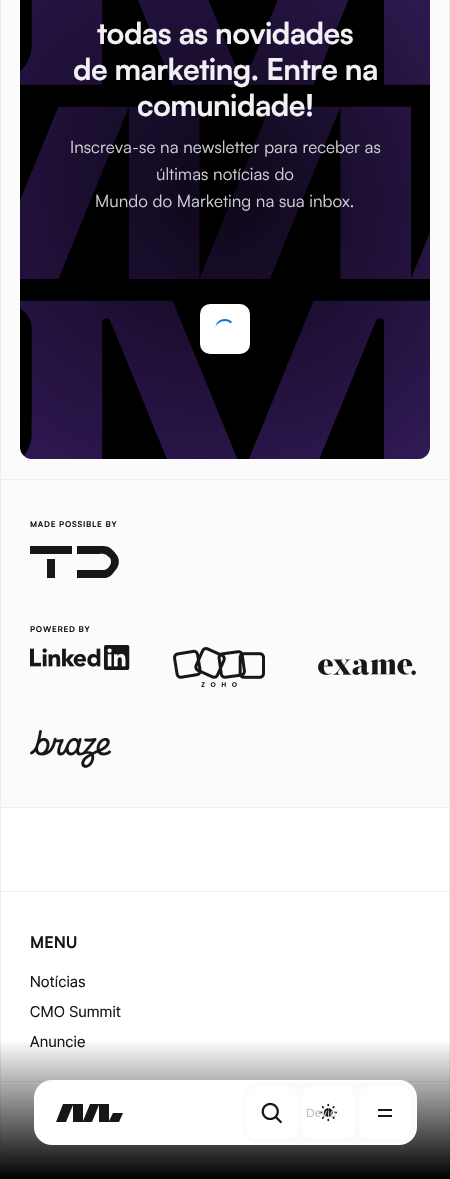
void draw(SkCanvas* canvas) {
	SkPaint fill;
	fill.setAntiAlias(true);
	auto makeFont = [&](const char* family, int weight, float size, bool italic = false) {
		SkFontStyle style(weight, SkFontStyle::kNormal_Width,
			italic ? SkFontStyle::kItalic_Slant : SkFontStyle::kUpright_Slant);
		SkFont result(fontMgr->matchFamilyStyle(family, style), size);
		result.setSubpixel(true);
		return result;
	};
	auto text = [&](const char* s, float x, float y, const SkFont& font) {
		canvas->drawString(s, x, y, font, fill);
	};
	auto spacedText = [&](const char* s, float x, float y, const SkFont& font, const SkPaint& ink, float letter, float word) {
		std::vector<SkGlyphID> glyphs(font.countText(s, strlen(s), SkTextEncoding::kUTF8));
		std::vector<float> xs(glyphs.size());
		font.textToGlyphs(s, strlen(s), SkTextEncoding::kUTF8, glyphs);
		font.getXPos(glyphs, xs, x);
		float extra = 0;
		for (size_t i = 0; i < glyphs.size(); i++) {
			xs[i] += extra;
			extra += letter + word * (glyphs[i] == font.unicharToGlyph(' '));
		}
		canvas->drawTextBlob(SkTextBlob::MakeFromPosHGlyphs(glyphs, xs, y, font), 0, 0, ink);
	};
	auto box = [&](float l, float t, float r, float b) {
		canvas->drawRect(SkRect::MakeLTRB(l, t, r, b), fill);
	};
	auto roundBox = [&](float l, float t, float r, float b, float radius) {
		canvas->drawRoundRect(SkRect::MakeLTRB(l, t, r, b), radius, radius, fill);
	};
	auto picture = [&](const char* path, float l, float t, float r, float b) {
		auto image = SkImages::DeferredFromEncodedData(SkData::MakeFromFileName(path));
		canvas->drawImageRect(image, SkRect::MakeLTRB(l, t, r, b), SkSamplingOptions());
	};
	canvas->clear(0xFFFBFBFB);
	fill.setColor(0xFFEDEEF0);
	box(449, 0, 450, 479);
	box(0, 0, 1, 479);
	fill.setColor(0xFF000000);
	roundBox(20, -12, 430, 459, 12);
	picture("image0.png", 20, 0, 430, 459);
	fill.setColor(0xFFFFFFFF);
	roundBox(200, 304, 250, 354, 10);
	fill.setColor(0xFF0077DD);
	canvas->drawPath(SkPathBuilder().moveTo(225, 321).cubicTo(227.5f, 321, 229.5f, 322, 230.5f, 323.5f).lineTo(232, 322).cubicTo(228.5f, 318, 221.5f, 318, 217.5f, 322).cubicTo(216, 324, 215.5f, 326.5f, 215, 329).cubicTo(215.5f, 324, 220.5f, 321, 225, 321).close().detach(), fill);
	fill.setColor(0xFFEDEEF0);
	box(0, 479, 450, 480);
	fill.setColor(0xFFFFFFFF);
	box(1, 808, 449, 1178);
	fill.setColor(0xFFEDEEF0);
	box(0, 807, 450, 808);
	box(449, 480, 450, 1179);
	box(0, 480, 1, 1179);
	fill.setColor(0xFF171717);
	canvas->drawPath(SkPathBuilder().moveTo(30, 546).lineTo(72, 546).lineTo(72, 554).lineTo(30, 554).close().moveTo(47, 559).lineTo(55, 559).lineTo(55, 578).lineTo(47, 578).close().moveTo(119, 562).lineTo(119, 562).close().moveTo(116, 554).cubicTo(109, 545, 107, 546, 95, 546).lineTo(77, 546).lineTo(77, 554).lineTo(94, 554).cubicTo(103, 554, 104, 552, 110, 558).cubicTo(113, 563, 109, 569, 104, 570).lineTo(77, 570).lineTo(77, 578).lineTo(106, 578).cubicTo(110, 577, 112, 575, 114, 572).cubicTo(119, 567, 121, 560, 116, 554).close().detach(), fill);
	picture("image1.png", 30, 645, 130, 670);
	picture("image2.png", 173, 647, 265, 687);
	picture("image3.png", 318, 659, 416, 675);
	picture("image4.png", 30, 730, 111, 768);
	fill.setColor(0xFFEDEEF0);
	box(0, 891, 450, 892);
	box(0, 1081, 450, 1082);
	auto font1 = makeFont("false", 700, 30);
	fill.setColor(0xFFF0F0F5);
	spacedText("todas as novidades", 97, 44, font1, fill, -0.6f, 0);
	spacedText("de marketing. Entre na", 73, 80, font1, fill, -0.6f, 0);
	spacedText("comunidade!", 137, 116, font1, fill, -0.6f, 0);
	auto font2 = makeFont("false", 400, 17);
	fill.setColor(0xFFCFCFD4);
	text("Inscreva-se na newsletter para receber as", 70, 153, font2);
	text("últimas notícias do", 156, 180, font2);
	text("Mundo do Marketing na sua inbox.", 95, 207, font2);
	auto font3 = makeFont("false", 700, 8);
	fill.setColor(0xFF171717);
	spacedText("MADE POSSIBLE BY", 30, 527, font3, fill, 0.75f, 0);
	spacedText("POWERED BY", 30, 632, font3, fill, 0.75f, 0);
	auto font4 = makeFont("false", 700, 16);
	text("MENU", 30, 948, font4);
	auto font5 = makeFont("Inter Tight", 400, 15);
	spacedText("Notícias", 30, 987, font5, fill, 0.5f, 0);
	spacedText("CMO Summit", 30, 1017, font5, fill, 0.5f, 0);
	spacedText("Anuncie", 30, 1047, font5, fill, 0.5f, 0);
	{
		const SkColor colors[] = {0x00000000, 0xFF000000};
		const float stops[] = {0, 1};
		const SkPoint ends[] = {{225, 1039}, {225, 1179}};
		fill.setShader(SkGradientShader::MakeLinear(ends, colors, stops, 2, SkTileMode::kClamp));
		fill.setAlpha(255);
	}
	box(0, 1042, 450, 1179);
	fill.setShader(nullptr);
	fill.setColor(0xFFFFFFFF);
	roundBox(34, 1080, 417, 1145, 18);
	fill.setColor(0xFF171717);
	canvas->drawPath(SkPathBuilder().moveTo(56, 1122).lineTo(66, 1122).lineTo(73, 1105).lineTo(73, 1122).lineTo(92, 1122).lineTo(99, 1105).lineTo(99, 1122).lineTo(119, 1122).lineTo(123, 1113).lineTo(113, 1113).lineTo(109, 1121).lineTo(109, 1104).lineTo(90, 1104).lineTo(83, 1121).lineTo(83, 1104).lineTo(63, 1104).close().detach(), fill);
	fill.setColor(0xFFFBFBFB);
	roundBox(242, 1082, 415, 1143, 17);
	fill.setColor(0xFFFFFFFF);
	roundBox(246, 1087, 298, 1139, 12);
	picture("image5.png", 261, 1102, 282, 1124);
	roundBox(302, 1086, 355, 1139, 12);
	picture("image6.png", 319, 1103, 337, 1122);
	auto font6 = makeFont("Liberation Sans", 400, 12);
	fill.setColor(0xFFBFBFBF);
	text("Devic", 306, 1117, font6);
	fill.setColor(0xFFFFFFFF);
	roundBox(359, 1086, 411, 1139, 12);
	fill.setColor(0xFF171717);
	box(378, 1109, 392, 1111);
	box(378, 1115, 392, 1117);
}
